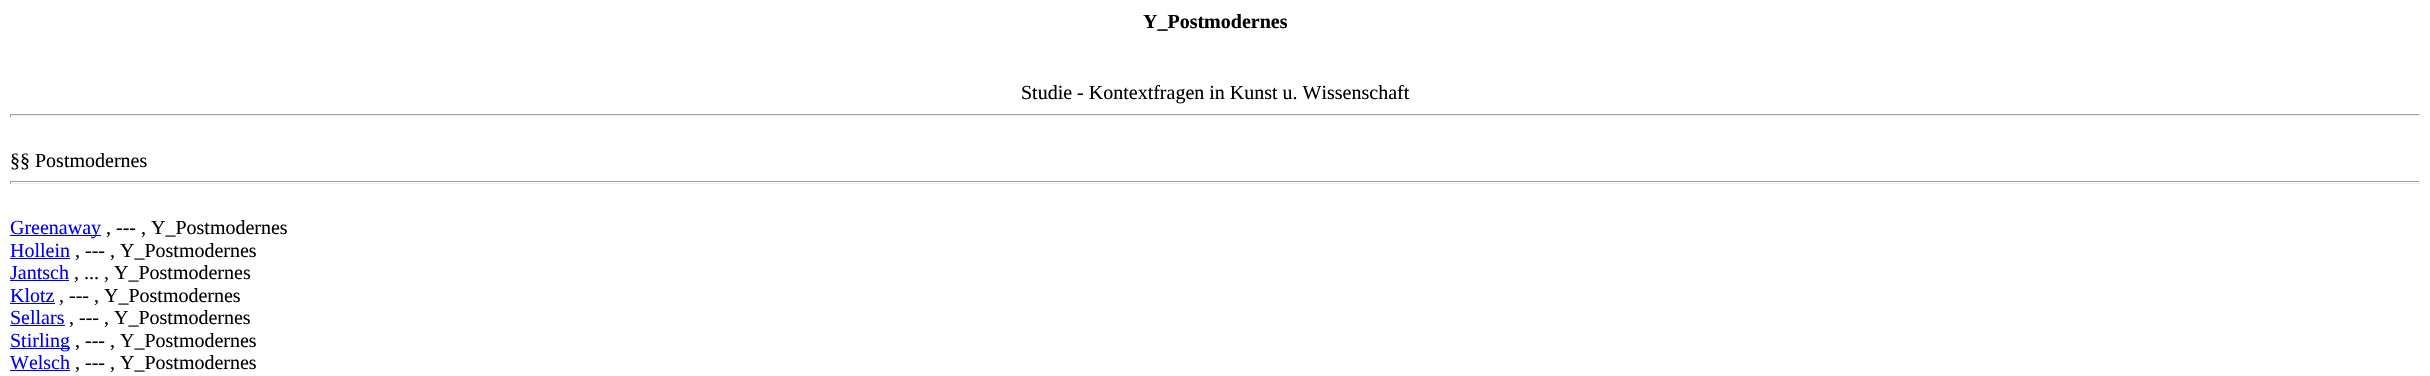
void draw(SkCanvas* canvas) {
	SkPaint fill;
	fill.setAntiAlias(true);
	auto makeFont = [&](const char* family, int weight, float size, bool italic = false) {
		SkFontStyle style(weight, SkFontStyle::kNormal_Width,
			italic ? SkFontStyle::kItalic_Slant : SkFontStyle::kUpright_Slant);
		SkFont result(fontMgr->matchFamilyStyle(family, style), size);
		result.setSubpixel(true);
		return result;
	};
	auto text = [&](const char* s, float x, float y, const SkFont& font) {
		canvas->drawString(s, x, y, font, fill);
	};
	auto box = [&](float l, float t, float r, float b) {
		canvas->drawRect(SkRect::MakeLTRB(l, t, r, b), fill);
	};
	canvas->clear(0xFFFFFFFF);
	fill.setColor(0xFF9F9F9F);
	box(10, 114, 2420, 115);
	fill.setColor(0xFFEEEEEE);
	box(2419, 114, 2420, 117);
	box(10, 115, 2420, 116);
	fill.setColor(0xFF9F9F9F);
	box(10, 114, 11, 117);
	box(10, 181, 2420, 182);
	fill.setColor(0xFFEEEEEE);
	box(2419, 181, 2420, 184);
	box(10, 183, 2420, 184);
	fill.setColor(0xFF9F9F9F);
	box(10, 181, 11, 184);
	fill.setColor(0xFF0000EE);
	box(10, 235, 101, 236);
	box(10, 258, 70, 259);
	box(10, 280, 69, 281);
	box(10, 303, 55, 304);
	box(10, 325, 65, 326);
	box(10, 348, 70, 349);
	box(10, 370, 70, 371);
	auto font1 = makeFont("Liberation Serif", 700, 20);
	fill.setColor(0xFF000000);
	text("Y_Postmodernes", 1143, 28, font1);
	auto font2 = makeFont("Liberation Serif", 400, 20);
	text("Studie - Kontextfragen in Kunst u. Wissenschaft", 1021, 99, font2);
	text("§§ Postmodernes", 10, 167, font2);
	fill.setColor(0xFF0000EE);
	text("Greenaway", 10, 234, font2);
	fill.setColor(0xFF000000);
	text(", --- , Y_Postmodernes", 106, 234, font2);
	fill.setColor(0xFF0000EE);
	text("Hollein", 10, 257, font2);
	fill.setColor(0xFF000000);
	text(", --- , Y_Postmodernes", 75, 257, font2);
	fill.setColor(0xFF0000EE);
	text("Jantsch", 10, 279, font2);
	fill.setColor(0xFF000000);
	text(", ... , Y_Postmodernes", 74, 279, font2);
	fill.setColor(0xFF0000EE);
	text("Klotz", 10, 302, font2);
	fill.setColor(0xFF000000);
	text(", --- , Y_Postmodernes", 59, 302, font2);
	fill.setColor(0xFF0000EE);
	text("Sellars", 10, 324, font2);
	fill.setColor(0xFF000000);
	text(", --- , Y_Postmodernes", 69, 324, font2);
	fill.setColor(0xFF0000EE);
	text("Stirling", 10, 347, font2);
	fill.setColor(0xFF000000);
	text(", --- , Y_Postmodernes", 75, 347, font2);
	fill.setColor(0xFF0000EE);
	text("Welsch", 10, 369, font2);
	fill.setColor(0xFF000000);
	text(", --- , Y_Postmodernes", 75, 369, font2);
}
